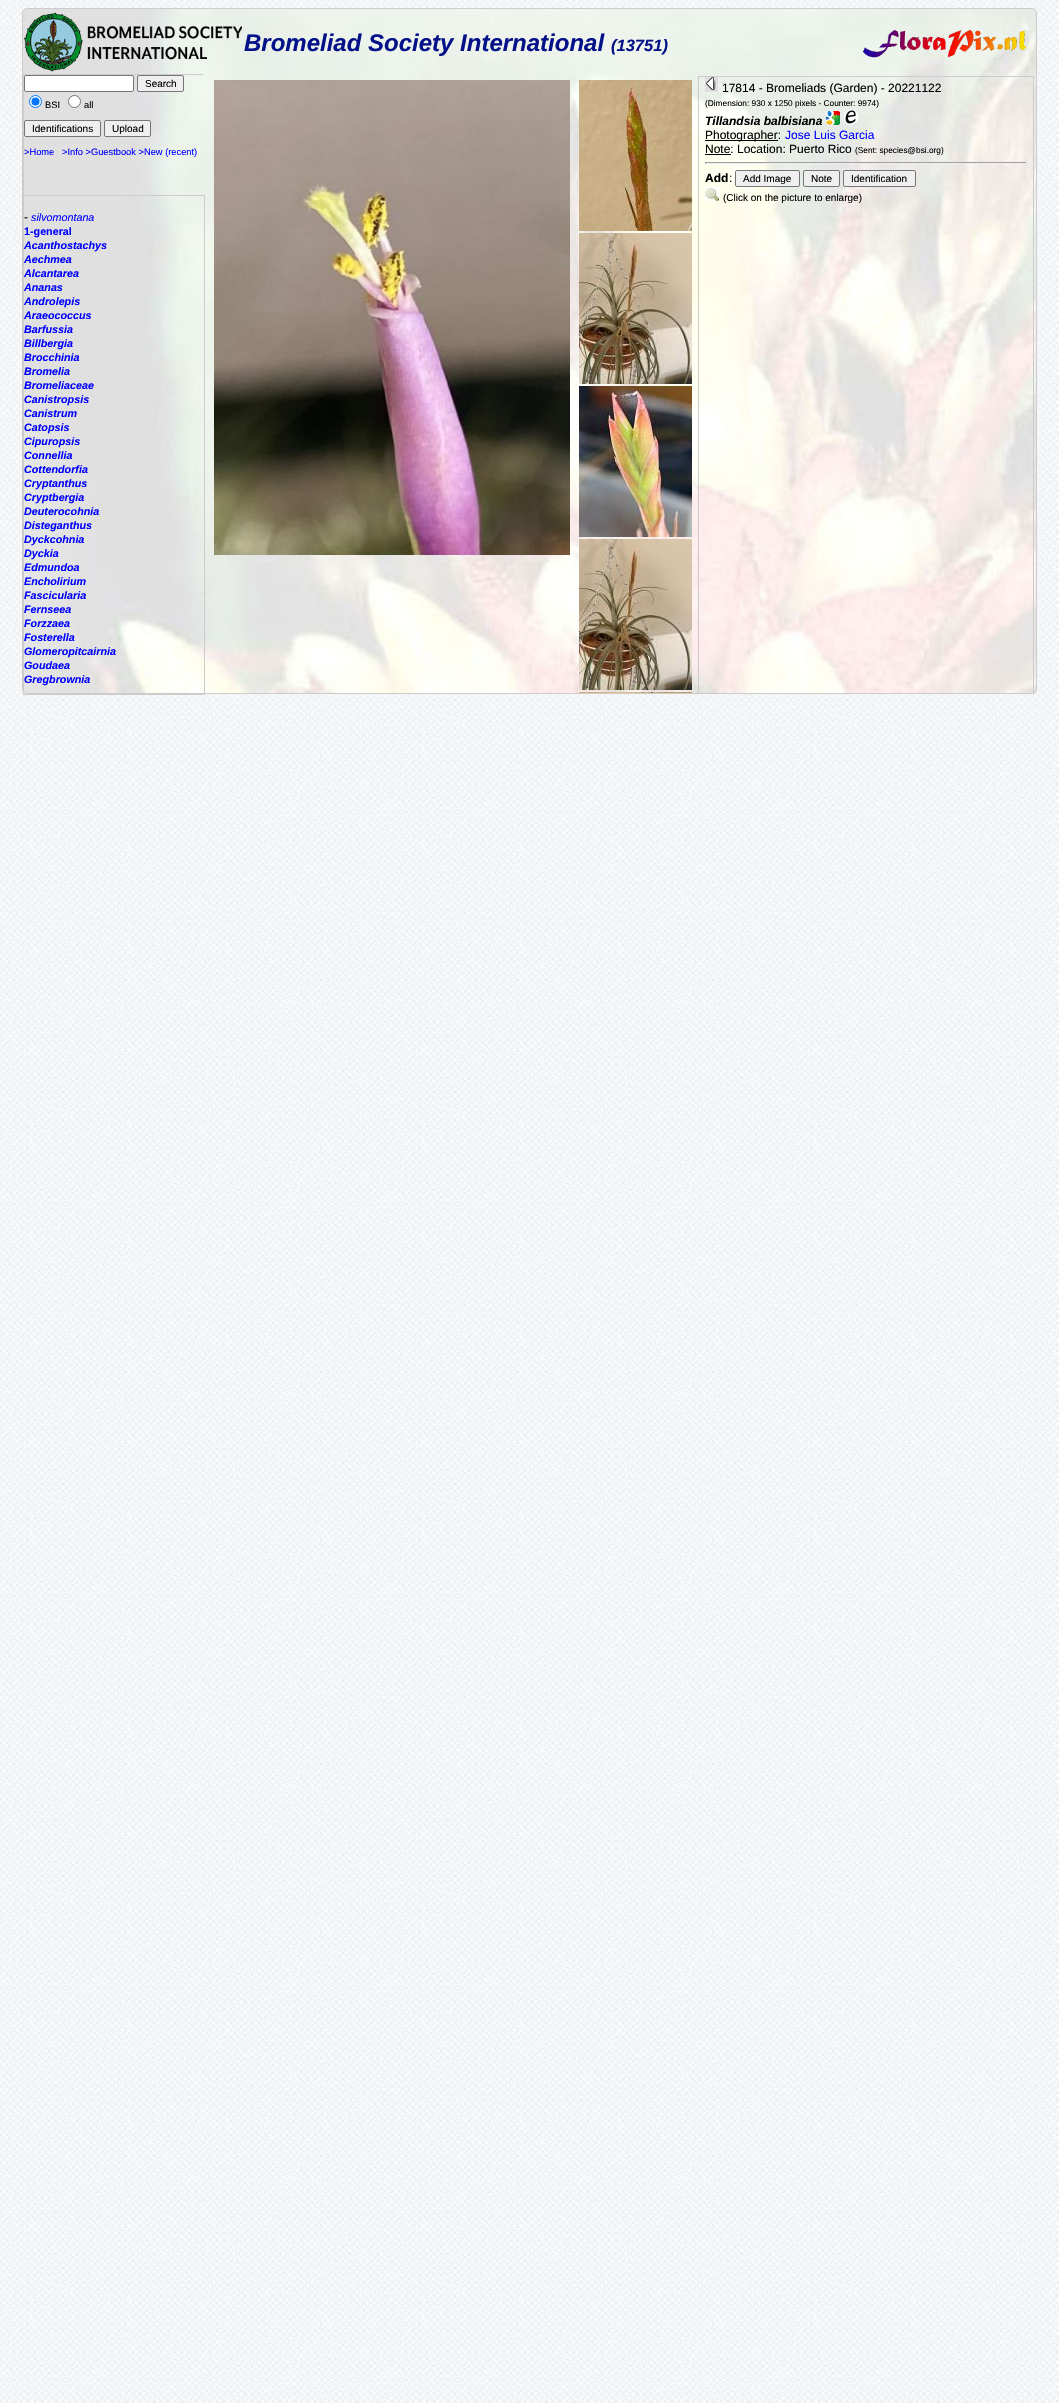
void draw(SkCanvas* canvas) {
	SkPaint fill;
	fill.setAntiAlias(true);
	auto makeFont = [&](const char* family, int weight, float size, bool italic = false) {
		SkFontStyle style(weight, SkFontStyle::kNormal_Width,
			italic ? SkFontStyle::kItalic_Slant : SkFontStyle::kUpright_Slant);
		SkFont result(fontMgr->matchFamilyStyle(family, style), size);
		result.setSubpixel(true);
		return result;
	};
	auto text = [&](const char* s, float x, float y, const SkFont& font) {
		canvas->drawString(s, x, y, font, fill);
	};
	auto box = [&](float l, float t, float r, float b) {
		canvas->drawRect(SkRect::MakeLTRB(l, t, r, b), fill);
	};
	auto picture = [&](const char* path, float l, float t, float r, float b) {
		auto image = SkImages::DeferredFromEncodedData(SkData::MakeFromFileName(path));
		canvas->drawImageRect(image, SkRect::MakeLTRB(l, t, r, b), SkSamplingOptions());
	};
	canvas->clear(0xFFFFFFFF);
	picture("image0.png", 0, 0, 1059, 2403);
	picture("image1.png", 22, 8, 1037, 694);
	fill.setStyle(SkPaint::kStroke_Style);
	fill.setStrokeWidth(1);
	fill.setColor(0xFFCCCCCC);
	canvas->drawRoundRect(SkRect::MakeLTRB(22.5f, 8.5f, 1036.5f, 693.5f), 4.5f, 4.5f, fill);
	picture("image2.png", 24, 12, 242, 72);
	picture("image3.png", 862, 29, 1027, 58);
	canvas->save();
	canvas->clipRect(SkRect::MakeLTRB(23, 74, 203, 693));
	canvas->drawRect(SkRect::MakeLTRB(23.5f, 74.5f, 204.5f, 195.5f), fill);
	canvas->restore();
	fill.setStyle(SkPaint::kFill_Style);
	fill.setColor(0xFFFFFFFF);
	canvas->drawRoundRect(SkRect::MakeLTRB(24.5f, 75.5f, 133.5f, 91.5f), 1.5f, 1.5f, fill);
	fill.setStyle(SkPaint::kStroke_Style);
	fill.setColor(0xFF767676);
	canvas->drawRoundRect(SkRect::MakeLTRB(24.5f, 75.5f, 133.5f, 91.5f), 1.5f, 1.5f, fill);
	fill.setStyle(SkPaint::kFill_Style);
	fill.setColor(0xFFEFEFEF);
	canvas->drawRoundRect(SkRect::MakeLTRB(137.5f, 75.5f, 183.5f, 91.5f), 1.5f, 1.5f, fill);
	fill.setStyle(SkPaint::kStroke_Style);
	fill.setColor(0xFF767676);
	canvas->drawRoundRect(SkRect::MakeLTRB(137.5f, 75.5f, 183.5f, 91.5f), 1.5f, 1.5f, fill);
	fill.setStyle(SkPaint::kFill_Style);
	fill.setColor(0xFFFFFFFF);
	canvas->drawCircle(35.5f, 101.5f, 6, fill);
	fill.setStyle(SkPaint::kStroke_Style);
	fill.setColor(0xFF0075FF);
	canvas->drawCircle(35.5f, 101.5f, 6, fill);
	fill.setStyle(SkPaint::kFill_Style);
	canvas->drawCircle(35.5f, 101.5f, 4, fill);
	fill.setColor(0xFFFFFFFF);
	canvas->drawCircle(74.5f, 101.5f, 6, fill);
	fill.setStyle(SkPaint::kStroke_Style);
	fill.setColor(0xFF767676);
	canvas->drawCircle(74.5f, 101.5f, 6, fill);
	fill.setStyle(SkPaint::kFill_Style);
	fill.setColor(0xFFEFEFEF);
	canvas->drawRoundRect(SkRect::MakeLTRB(24.5f, 120.5f, 100.5f, 136.5f), 1.5f, 1.5f, fill);
	fill.setStyle(SkPaint::kStroke_Style);
	fill.setColor(0xFF767676);
	canvas->drawRoundRect(SkRect::MakeLTRB(24.5f, 120.5f, 100.5f, 136.5f), 1.5f, 1.5f, fill);
	fill.setStyle(SkPaint::kFill_Style);
	fill.setColor(0xFFEFEFEF);
	canvas->drawRoundRect(SkRect::MakeLTRB(104.5f, 120.5f, 150.5f, 136.5f), 1.5f, 1.5f, fill);
	fill.setStyle(SkPaint::kStroke_Style);
	fill.setColor(0xFF767676);
	canvas->drawRoundRect(SkRect::MakeLTRB(104.5f, 120.5f, 150.5f, 136.5f), 1.5f, 1.5f, fill);
	fill.setColor(0xFFCCCCCC);
	canvas->drawRect(SkRect::MakeLTRB(23.5f, 195.5f, 204.5f, 694.5f), fill);
	picture("image4.png", 214, 80, 570, 555);
	picture("image5.png", 579, 80, 692, 231);
	picture("image6.png", 579, 233, 692, 384);
	picture("image7.png", 579, 386, 692, 537);
	picture("image6.png", 579, 539, 692, 690);
	picture("image8.png", 579, 692, 692, 693);
	canvas->save();
	canvas->clipRect(SkRect::MakeLTRB(203, 74, 1036, 693));
	canvas->drawRect(SkRect::MakeLTRB(698.5f, 76.5f, 1033.5f, 848.5f), fill);
	canvas->restore();
	picture("image9.png", 705, 77, 718, 92);
	picture("image10.png", 826, 111, 840, 125);
	picture("image11.png", 843, 109, 859, 125);
	fill.setStyle(SkPaint::kFill_Style);
	fill.setColor(0xFF000000);
	box(705, 140, 778, 141);
	box(705, 154, 731, 155);
	fill.setColor(0xFF9F9F9F);
	box(705, 162, 1027, 163);
	fill.setColor(0xFFEEEEEE);
	box(1026, 162, 1027, 164);
	box(705, 163, 1027, 164);
	fill.setColor(0xFF9F9F9F);
	box(705, 162, 706, 164);
	fill.setColor(0xFFEFEFEF);
	canvas->drawRoundRect(SkRect::MakeLTRB(735.5f, 170.5f, 799.5f, 186.5f), 1.5f, 1.5f, fill);
	fill.setStyle(SkPaint::kStroke_Style);
	fill.setColor(0xFF767676);
	canvas->drawRoundRect(SkRect::MakeLTRB(735.5f, 170.5f, 799.5f, 186.5f), 1.5f, 1.5f, fill);
	fill.setStyle(SkPaint::kFill_Style);
	fill.setColor(0xFFEFEFEF);
	canvas->drawRoundRect(SkRect::MakeLTRB(803.5f, 170.5f, 839.5f, 186.5f), 1.5f, 1.5f, fill);
	fill.setStyle(SkPaint::kStroke_Style);
	fill.setColor(0xFF767676);
	canvas->drawRoundRect(SkRect::MakeLTRB(803.5f, 170.5f, 839.5f, 186.5f), 1.5f, 1.5f, fill);
	fill.setStyle(SkPaint::kFill_Style);
	fill.setColor(0xFFEFEFEF);
	canvas->drawRoundRect(SkRect::MakeLTRB(843.5f, 170.5f, 915.5f, 186.5f), 1.5f, 1.5f, fill);
	fill.setStyle(SkPaint::kStroke_Style);
	fill.setColor(0xFF767676);
	canvas->drawRoundRect(SkRect::MakeLTRB(843.5f, 170.5f, 915.5f, 186.5f), 1.5f, 1.5f, fill);
	picture("image12.png", 705, 187, 719, 201);
	auto font1 = makeFont("Liberation Sans", 700, 24, true);
	fill.setStyle(SkPaint::kFill_Style);
	fill.setColor(0xFF041188);
	text("Bromeliad Society International", 244, 51, font1);
	auto font2 = makeFont("Liberation Sans", 700, 16.5f, true);
	text("(13751)", 611, 51, font2);
	auto font3 = makeFont("Liberation Sans", 400, 10);
	fill.setColor(0xFF000000);
	text("Search", 145, 87, font3);
	auto font4 = makeFont("Liberation Sans", 400, 9.3f);
	text("BSI", 45, 108, font4);
	text("all", 84, 108, font4);
	text("Identifications", 32, 132, font3);
	text("Upload", 112, 132, font3);
	fill.setColor(0xFF0000FF);
	text(">Home", 24, 155, font4);
	text(">Info >Guestbook >New (recent)", 62, 155, font4);
	auto font5 = makeFont("Liberation Sans", 400, 12);
	fill.setColor(0xFF000000);
	text("-", 24, 221, font5);
	auto font6 = makeFont("Liberation Sans", 400, 10.75f, true);
	fill.setColor(0xFF0000FF);
	text("silvomontana", 31, 221, font6);
	auto font7 = makeFont("Liberation Sans", 700, 10.75f);
	text("1-general", 24, 235, font7);
	auto font8 = makeFont("Liberation Sans", 700, 10.75f, true);
	text("Acanthostachys", 24, 249, font8);
	text("Aechmea", 24, 263, font8);
	text("Alcantarea", 24, 277, font8);
	text("Ananas", 24, 291, font8);
	text("Androlepis", 24, 305, font8);
	text("Araeococcus", 24, 319, font8);
	text("Barfussia", 24, 333, font8);
	text("Billbergia", 24, 347, font8);
	text("Brocchinia", 24, 361, font8);
	text("Bromelia", 24, 375, font8);
	text("Bromeliaceae", 24, 389, font8);
	text("Canistropsis", 24, 403, font8);
	text("Canistrum", 24, 417, font8);
	text("Catopsis", 24, 431, font8);
	text("Cipuropsis", 24, 445, font8);
	text("Connellia", 24, 459, font8);
	text("Cottendorfia", 24, 473, font8);
	text("Cryptanthus", 24, 487, font8);
	text("Cryptbergia", 24, 501, font8);
	text("Deuterocohnia", 24, 515, font8);
	text("Disteganthus", 24, 529, font8);
	text("Dyckcohnia", 24, 543, font8);
	text("Dyckia", 24, 557, font8);
	text("Edmundoa", 24, 571, font8);
	text("Encholirium", 24, 585, font8);
	text("Fascicularia", 24, 599, font8);
	text("Fernseea", 24, 613, font8);
	text("Forzzaea", 24, 627, font8);
	text("Fosterella", 24, 641, font8);
	text("Glomeropitcairnia", 24, 655, font8);
	text("Goudaea", 24, 669, font8);
	text("Gregbrownia", 24, 683, font8);
	fill.setColor(0xFF000000);
	text("17814 - Bromeliads (Garden) - 20221122", 722, 92, font5);
	auto font9 = makeFont("Liberation Sans", 400, 8.3f);
	text("(Dimension: 930 x 1250 pixels - Counter: 9974)", 705, 106, font9);
	auto font10 = makeFont("Liberation Sans", 700, 12, true);
	text("Tillandsia balbisiana", 705, 125, font10);
	text("Photographer:", 705, 139, font5);
	fill.setColor(0xFF0000FF);
	text("Jose Luis Garcia", 785, 139, font5);
	fill.setColor(0xFF000000);
	text("Note: Location: Puerto Rico", 705, 153, font5);
	text("(Sent: species@bsi.org)", 855, 153, font9);
	auto font11 = makeFont("Liberation Sans", 700, 12);
	text("Add", 705, 182, font11);
	text(":", 729, 182, font5);
	text("Add Image", 743, 182, font3);
	text("Note", 811, 182, font3);
	text("Identification", 851, 182, font3);
	text("(Click on the picture to enlarge)", 723, 201, font3);
}
